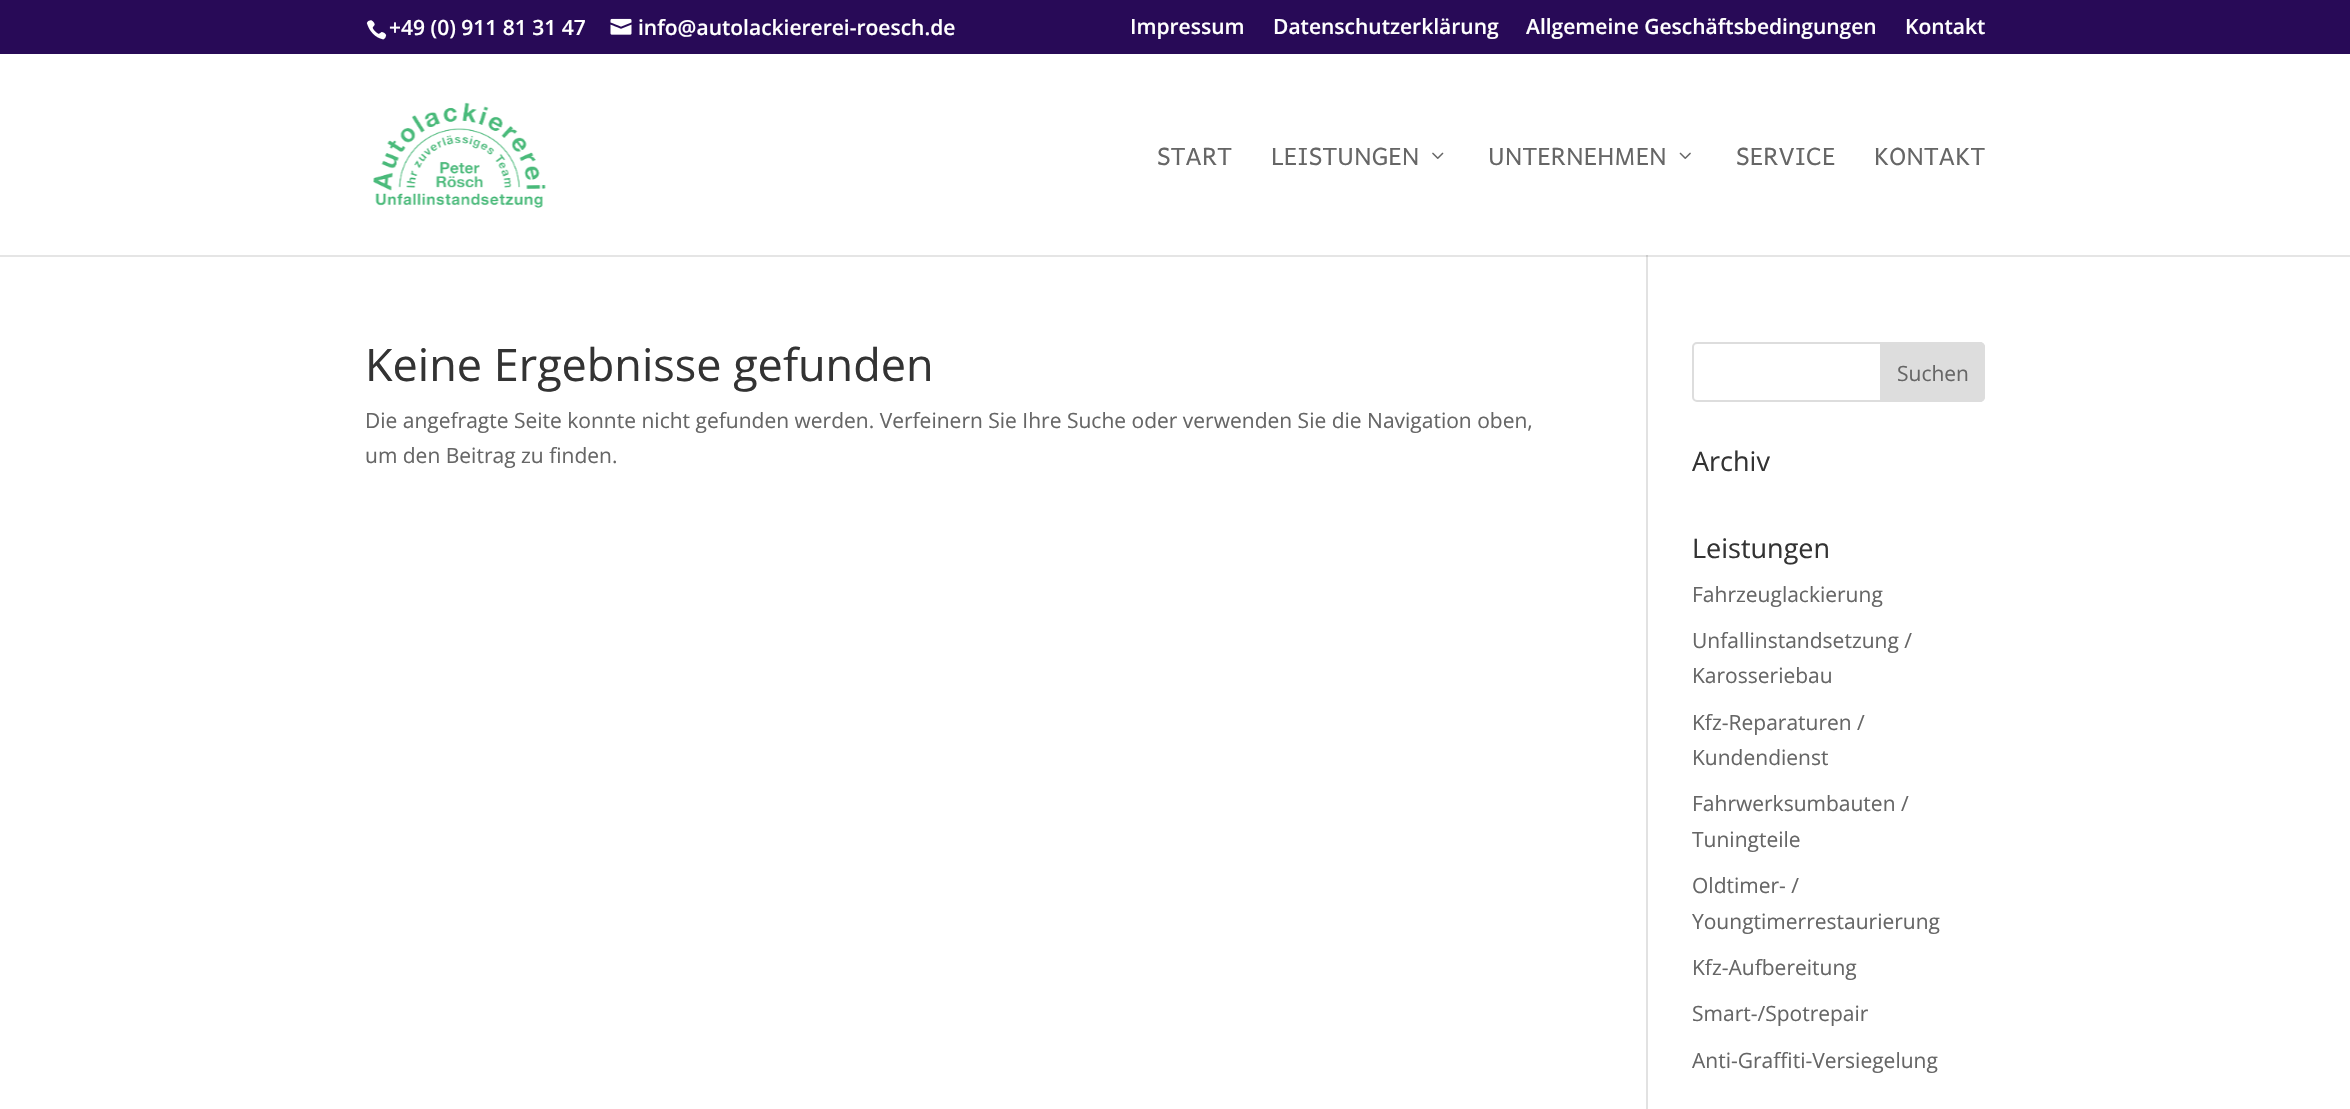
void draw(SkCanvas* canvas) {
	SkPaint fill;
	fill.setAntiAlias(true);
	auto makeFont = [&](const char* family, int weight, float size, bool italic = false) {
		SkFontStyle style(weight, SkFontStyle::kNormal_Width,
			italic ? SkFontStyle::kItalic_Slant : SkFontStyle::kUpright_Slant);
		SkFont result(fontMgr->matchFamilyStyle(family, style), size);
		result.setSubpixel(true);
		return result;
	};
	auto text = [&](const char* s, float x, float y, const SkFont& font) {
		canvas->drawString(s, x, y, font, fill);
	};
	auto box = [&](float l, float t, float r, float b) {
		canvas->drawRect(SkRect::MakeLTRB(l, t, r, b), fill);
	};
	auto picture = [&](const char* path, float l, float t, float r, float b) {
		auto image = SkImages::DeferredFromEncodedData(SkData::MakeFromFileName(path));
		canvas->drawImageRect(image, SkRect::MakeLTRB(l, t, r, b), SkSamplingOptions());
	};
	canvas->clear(0xFFFFFFFF);
	fill.setColor(0xFF280A57);
	box(0, 0, 2350, 54);
	picture("image0.png", 366, 20, 387, 40);
	picture("image1.png", 610, 18, 632, 35);
	fill.setColor(0xFFE2E2E2);
	box(1646, 255, 1648, 1109);
	fill.setColor(0x1A000000);
	canvas->drawPath(SkPathBuilder().moveTo(0, 255).lineTo(0, 257).lineTo(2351, 257).lineTo(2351, 56).lineTo(2350, 56).lineTo(2350, 255).close().detach(), fill);
	picture("image2.png", 373, 102, 546, 208);
	picture("image3.png", 1432, 152, 1444, 159);
	picture("image4.png", 1679, 152, 1691, 159);
	fill.setStyle(SkPaint::kStroke_Style);
	fill.setStrokeWidth(2);
	fill.setColor(0xFFDDDDDD);
	canvas->drawRoundRect(SkRect::MakeLTRB(1693, 343, 1984, 401), 4, 4, fill);
	fill.setStyle(SkPaint::kFill_Style);
	canvas->drawPath(SkPathBuilder().moveTo(1881, 343).lineTo(1980, 343).cubicTo(1982, 343, 1984, 345, 1984, 347).lineTo(1984, 397).cubicTo(1984, 399, 1982, 401, 1980, 401).lineTo(1881, 401).close().detach(), fill);
	fill.setStyle(SkPaint::kStroke_Style);
	canvas->drawPath(SkPathBuilder().moveTo(1881, 343).lineTo(1980, 343).cubicTo(1982, 343, 1984, 345, 1984, 347).lineTo(1984, 397).cubicTo(1984, 399, 1982, 401, 1980, 401).lineTo(1881, 401).close().detach(), fill);
	auto font1 = makeFont("Open Sans", 600, 21);
	fill.setStyle(SkPaint::kFill_Style);
	fill.setColor(0xFFFFFFFF);
	text("+49 (0) 911 81 31 47", 389, 35, font1);
	text("info@autolackiererei-roesch.de", 638, 35, font1);
	text("Impressum", 1130, 34, font1);
	text("Datenschutzerklärung", 1273, 34, font1);
	text("Allgemeine Geschäftsbedingungen", 1526, 34, font1);
	text("Kontakt", 1905, 34, font1);
	auto font2 = makeFont("Andika", 400, 24);
	fill.setColor(0xFF666666);
	text("START", 1157, 165, font2);
	text("LEISTUNGEN", 1271, 165, font2);
	text("UNTERNEHMEN", 1488, 165, font2);
	text("SERVICE", 1736, 165, font2);
	text("KONTAKT", 1874, 165, font2);
	auto font3 = makeFont("Open Sans", 400, 45);
	fill.setColor(0xFF333333);
	text("Keine Ergebnisse gefunden", 365, 381, font3);
	auto font4 = makeFont("Open Sans", 400, 21);
	fill.setColor(0xFF666666);
	text("Die angefragte Seite konnte nicht gefunden werden. Verfeinern Sie Ihre Suche oder verwenden Sie die Navigation oben,", 365, 428, font4);
	text("um den Beitrag zu finden.", 365, 463, font4);
	text("Suchen", 1897, 381, font4);
	auto font5 = makeFont("Open Sans", 400, 27);
	fill.setColor(0xFF333333);
	text("Archiv", 1692, 471, font5);
	text("Leistungen", 1692, 558, font5);
	fill.setColor(0xFF666666);
	text("Fahrzeuglackierung", 1692, 602, font4);
	text("Unfallinstandsetzung /", 1692, 648, font4);
	text("Karosseriebau", 1692, 683, font4);
	text("Kfz-Reparaturen /", 1692, 730, font4);
	text("Kundendienst", 1692, 765, font4);
	text("Fahrwerksumbauten /", 1692, 811, font4);
	text("Tuningteile", 1692, 847, font4);
	text("Oldtimer- /", 1692, 893, font4);
	text("Youngtimerrestaurierung", 1692, 929, font4);
	text("Kfz-Aufbereitung", 1692, 975, font4);
	text("Smart-/Spotrepair", 1692, 1021, font4);
	text("Anti-Graffiti-Versiegelung", 1692, 1068, font4);
}
